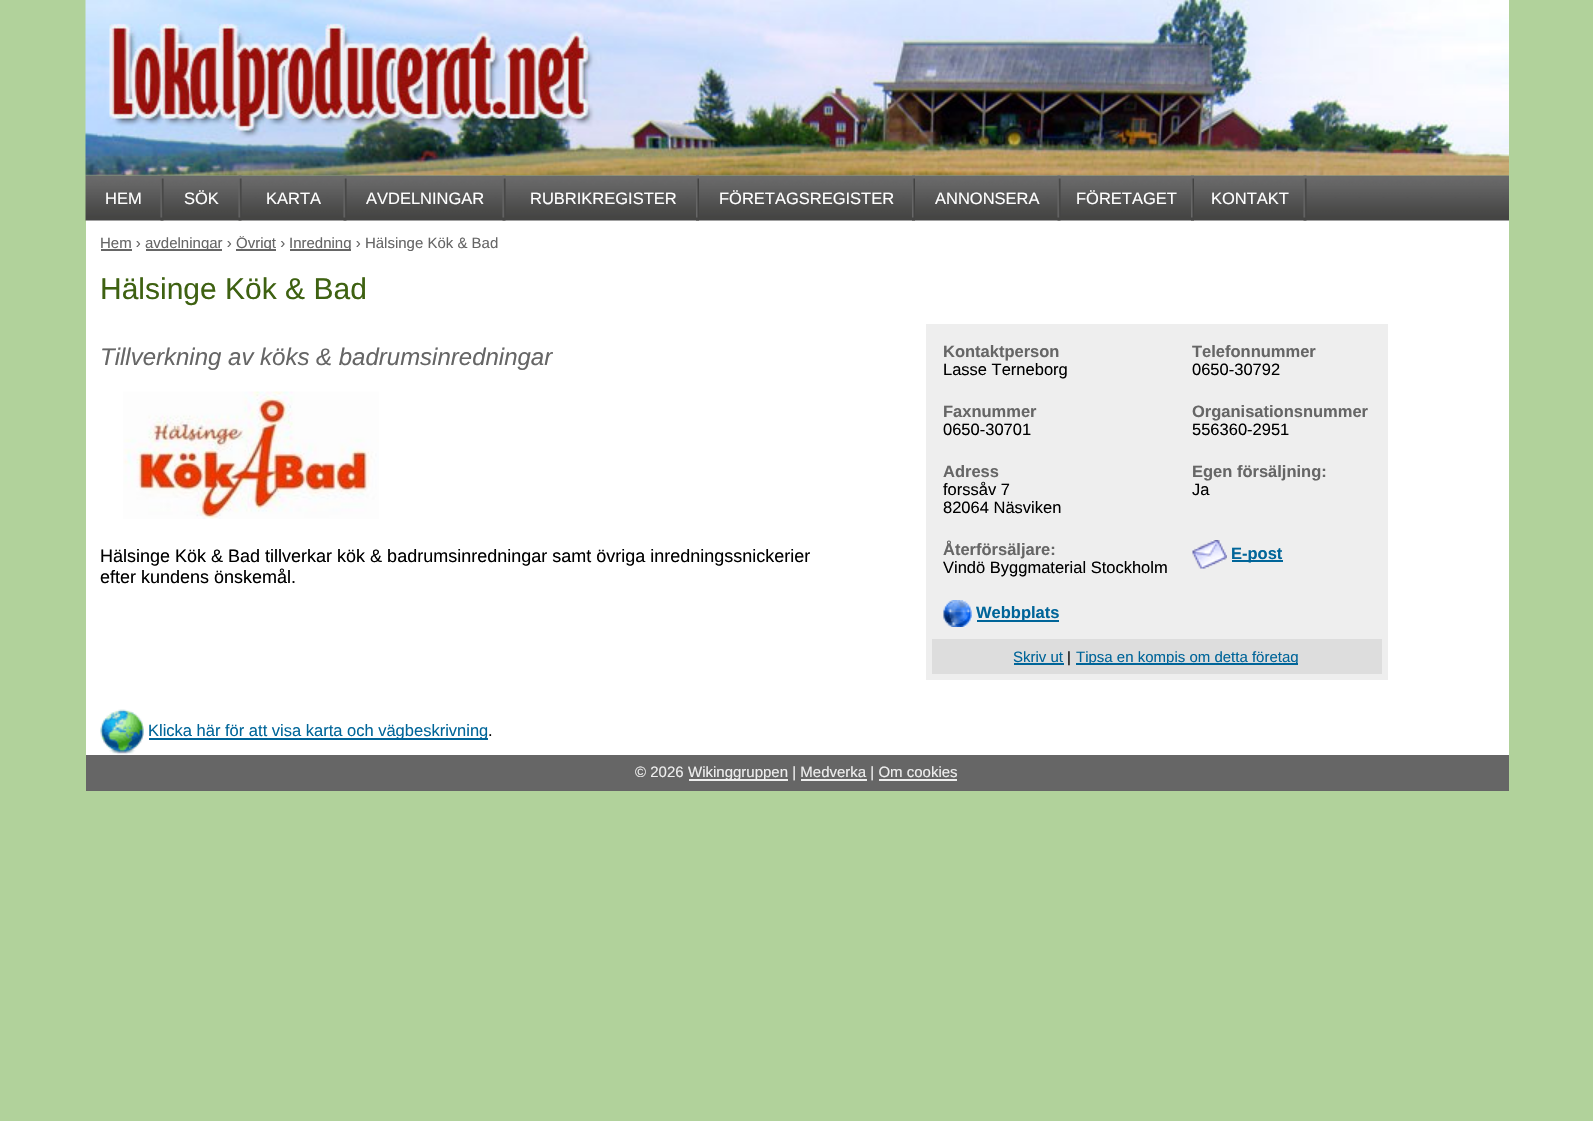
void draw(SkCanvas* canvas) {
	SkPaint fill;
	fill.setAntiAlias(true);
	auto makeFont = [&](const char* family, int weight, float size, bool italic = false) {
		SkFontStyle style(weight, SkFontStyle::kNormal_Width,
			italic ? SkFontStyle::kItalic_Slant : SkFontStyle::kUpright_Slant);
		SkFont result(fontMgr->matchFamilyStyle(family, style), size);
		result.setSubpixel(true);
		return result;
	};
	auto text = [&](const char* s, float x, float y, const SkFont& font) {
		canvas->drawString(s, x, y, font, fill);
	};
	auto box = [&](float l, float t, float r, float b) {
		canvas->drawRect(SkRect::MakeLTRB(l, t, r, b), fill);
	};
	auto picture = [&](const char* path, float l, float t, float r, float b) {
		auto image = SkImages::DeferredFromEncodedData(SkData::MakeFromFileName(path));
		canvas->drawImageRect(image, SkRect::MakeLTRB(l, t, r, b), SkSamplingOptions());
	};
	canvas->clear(0xFFB1D29B);
	picture("image0.png", 85, 0, 1509, 176);
	fill.setColor(0xFFFFFFFF);
	box(86, 236, 1509, 755);
	fill.setColor(0xFF666666);
	box(101, 249, 132, 251);
	box(146, 249, 222, 251);
	box(236, 249, 276, 251);
	box(290, 249, 351, 251);
	picture("image11.png", 123, 391, 379, 519);
	fill.setColor(0xFFEEEEEE);
	box(926, 324, 1388, 680);
	picture("image12.png", 1192, 540, 1227, 569);
	fill.setColor(0xFF006599);
	box(1232, 560, 1283, 562);
	picture("image13.png", 943, 600, 972, 627);
	box(977, 620, 1059, 622);
	fill.setColor(0xFFDDDDDD);
	box(932, 639, 1382, 674);
	fill.setColor(0xFF006599);
	box(1014, 663, 1064, 665);
	box(1076, 663, 1298, 665);
	picture("image14.png", 100, 709, 144, 755);
	box(149, 738, 488, 740);
	fill.setColor(0xFF666666);
	box(86, 755, 1509, 791);
	fill.setColor(0xFFEEEEEE);
	box(689, 779, 788, 781);
	box(801, 779, 867, 781);
	box(879, 779, 957, 781);
	auto font1 = makeFont("Liberation Sans", 400, 15);
	fill.setColor(0xFF666666);
	text("Hem ›", 100, 248, font1);
	text("avdelningar ›", 145, 248, font1);
	text("Övrigt ›", 236, 248, font1);
	fill.setColor(0xFFFFFFFF);
	box(86, 220, 1509, 236);
	picture("image1.png", 85, 175, 1509, 221);
	auto font2 = makeFont("Liberation Sans", 400, 16.5f);
	text("KONTAKT", 1211, 204, font2);
	picture("image10.png", 1303, 175, 1307, 221);
	text("FÖRETAGET", 1076, 204, font2);
	picture("image9.png", 1191, 175, 1194, 221);
	text("ANNONSERA", 935, 204, font2);
	picture("image8.png", 1057, 175, 1061, 221);
	text("FÖRETAGSREGISTER", 719, 204, font2);
	picture("image7.png", 912, 175, 915, 221);
	text("RUBRIKREGISTER", 530, 204, font2);
	picture("image6.png", 696, 175, 699, 221);
	text("AVDELNINGAR", 366, 204, font2);
	picture("image5.png", 502, 175, 506, 221);
	text("KARTA", 266, 204, font2);
	picture("image4.png", 343, 175, 347, 221);
	text("SÖK", 184, 204, font2);
	picture("image3.png", 238, 175, 242, 221);
	text("HEM", 105, 204, font2);
	picture("image2.png", 160, 175, 164, 221);
	fill.setColor(0xFF666666);
	text("Inredning › Hälsinge Kök & Bad", 289, 248, font1);
	auto font3 = makeFont("Liberation Sans", 400, 30);
	fill.setColor(0xFF3E6111);
	text("Hälsinge Kök & Bad", 100, 299, font3);
	auto font4 = makeFont("Liberation Sans", 400, 24, true);
	fill.setColor(0xFF666666);
	text("Tillverkning av köks & badrumsinredningar", 100, 365, font4);
	auto font5 = makeFont("Liberation Sans", 400, 18);
	fill.setColor(0xFF000000);
	text("Hälsinge Kök & Bad tillverkar kök & badrumsinredningar samt övriga inredningssnickerier", 100, 562, font5);
	text("efter kundens önskemål.", 100, 583, font5);
	auto font6 = makeFont("Liberation Sans", 700, 16.5f);
	fill.setColor(0xFF666666);
	text("Kontaktperson", 943, 357, font6);
	fill.setColor(0xFF000000);
	text("Lasse Terneborg", 943, 375, font2);
	fill.setColor(0xFF666666);
	text("Telefonnummer", 1192, 357, font6);
	fill.setColor(0xFF000000);
	text("0650-30792", 1192, 375, font2);
	fill.setColor(0xFF666666);
	text("Faxnummer", 943, 417, font6);
	fill.setColor(0xFF000000);
	text("0650-30701", 943, 435, font2);
	fill.setColor(0xFF666666);
	text("Organisationsnummer", 1192, 417, font6);
	fill.setColor(0xFF000000);
	text("556360-2951", 1192, 435, font2);
	fill.setColor(0xFF666666);
	text("Adress", 943, 477, font6);
	fill.setColor(0xFF000000);
	text("forssåv 7", 943, 495, font2);
	text("82064 Näsviken", 943, 513, font2);
	fill.setColor(0xFF666666);
	text("Egen försäljning:", 1192, 477, font6);
	fill.setColor(0xFF000000);
	text("Ja", 1192, 495, font2);
	fill.setColor(0xFF666666);
	text("Återförsäljare:", 943, 555, font6);
	fill.setColor(0xFF000000);
	text("Vindö Byggmaterial Stockholm", 943, 573, font2);
	fill.setColor(0xFF006599);
	text("E-post", 1231, 559, font6);
	text("Webbplats", 976, 618, font6);
	text("Skriv ut", 1013, 662, font1);
	fill.setColor(0xFF000000);
	text("|", 1067, 662, font1);
	fill.setColor(0xFF006599);
	text("Tipsa en kompis om detta företag", 1076, 662, font1);
	text("Klicka här för att visa karta och vägbeskrivning", 148, 736, font2);
	fill.setColor(0xFF000000);
	text(".", 488, 736, font2);
	fill.setColor(0xFFEEEEEE);
	text("© 2026", 635, 777, font1);
	text("Wikinggruppen | Medverka | Om cookies", 688, 777, font1);
}
